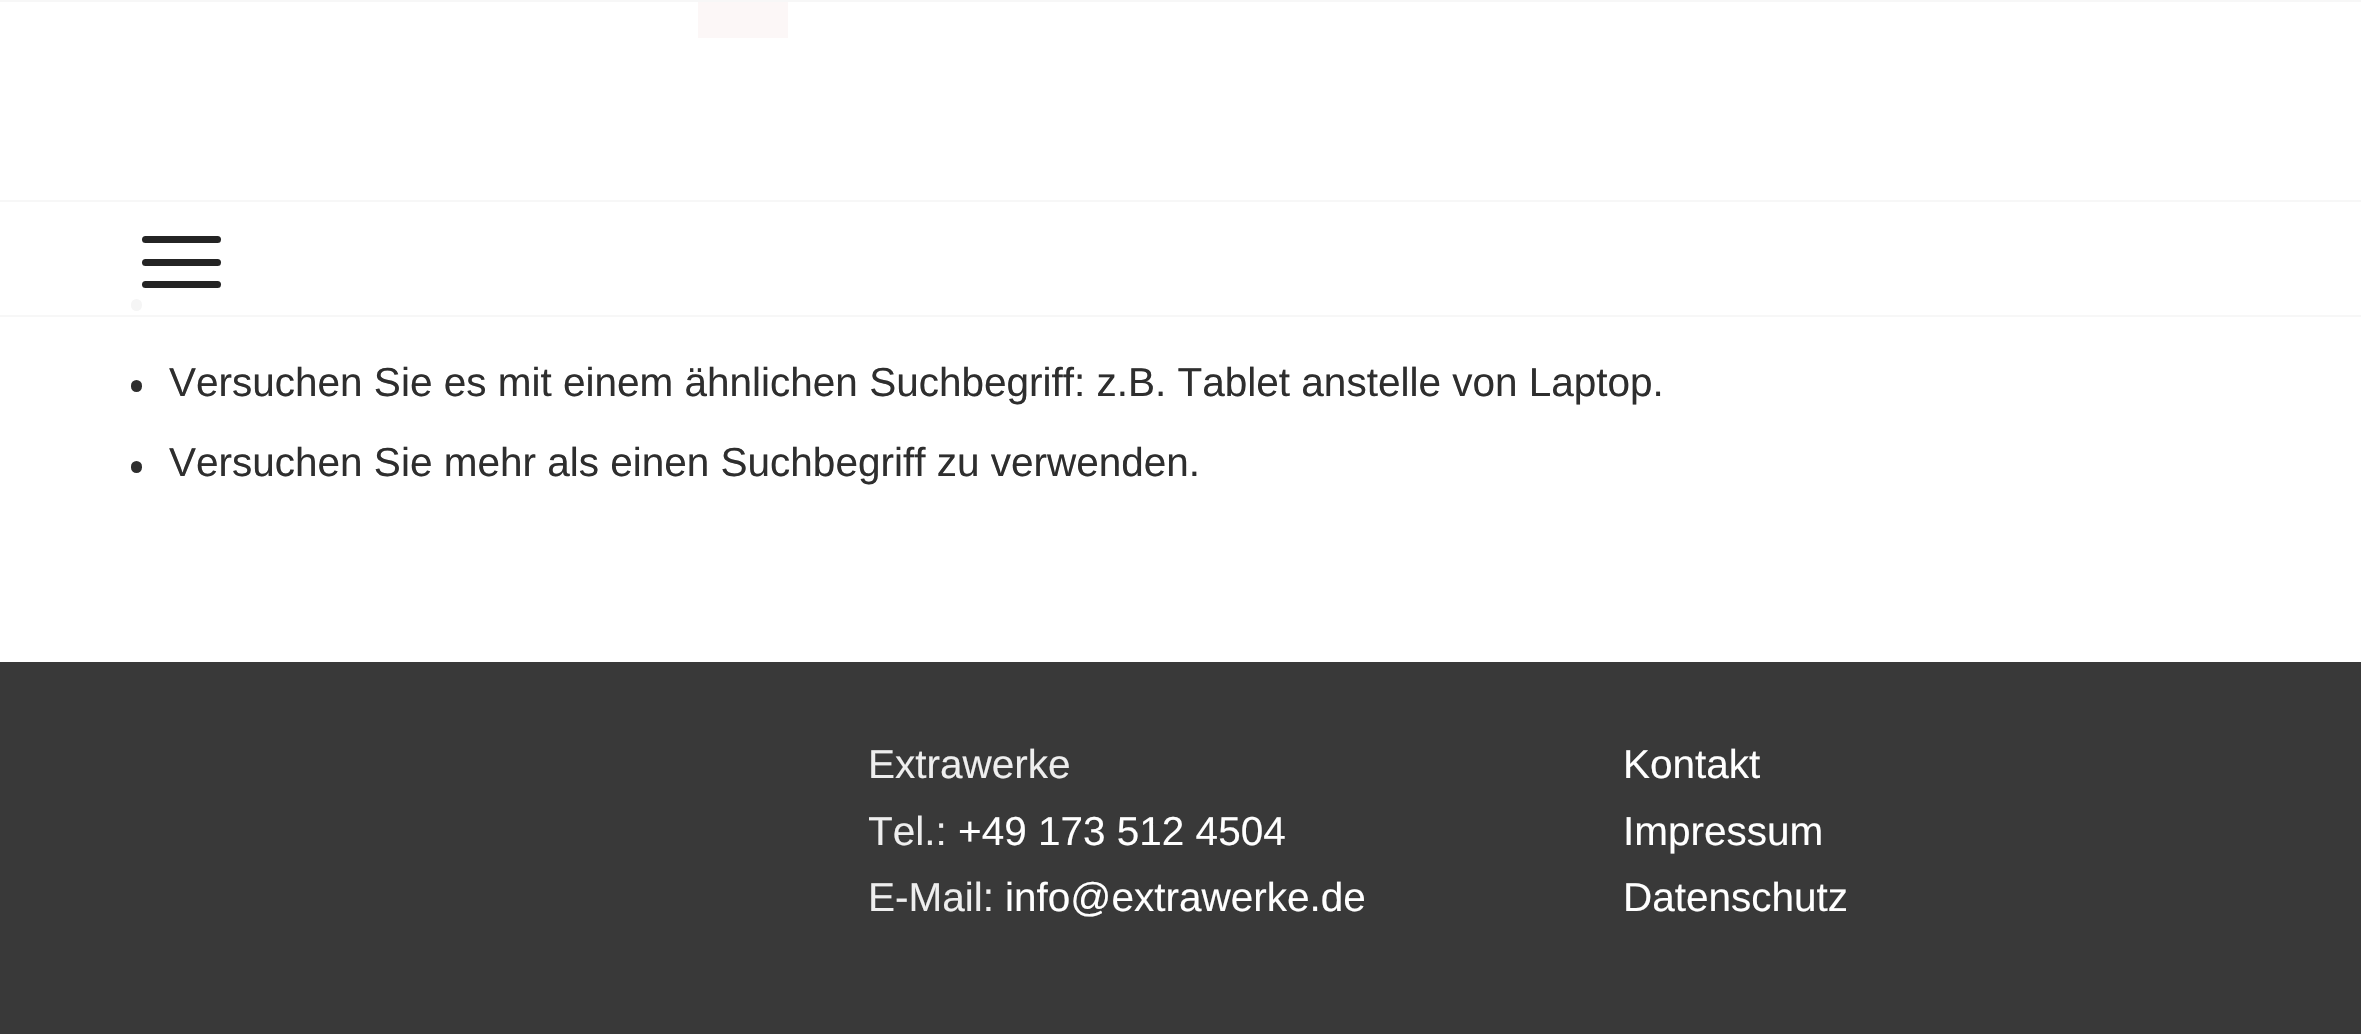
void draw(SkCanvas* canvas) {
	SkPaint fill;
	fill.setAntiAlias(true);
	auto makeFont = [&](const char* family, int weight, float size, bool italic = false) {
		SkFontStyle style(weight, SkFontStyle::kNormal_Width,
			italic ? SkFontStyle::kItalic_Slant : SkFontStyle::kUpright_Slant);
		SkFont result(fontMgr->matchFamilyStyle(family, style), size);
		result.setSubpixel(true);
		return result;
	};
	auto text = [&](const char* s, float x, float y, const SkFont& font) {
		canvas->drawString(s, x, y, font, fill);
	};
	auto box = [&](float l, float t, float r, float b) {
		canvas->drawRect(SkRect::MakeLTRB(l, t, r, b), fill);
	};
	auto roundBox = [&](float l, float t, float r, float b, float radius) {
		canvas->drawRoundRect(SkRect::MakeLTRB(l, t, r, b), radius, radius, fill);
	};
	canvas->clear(0xFFFFFFFF);
	fill.setColor(0xFFF8F8F8);
	box(115, 2, 698, 36);
	fill.setStyle(SkPaint::kStroke_Style);
	fill.setStrokeWidth(2);
	fill.setColor(0xFFEDEDED);
	canvas->drawRect(SkRect::MakeLTRB(114, -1, 787, 37), fill);
	fill.setStyle(SkPaint::kFill_Style);
	fill.setColor(0xFFF7F7F7);
	box(0, 0, 2361, 2);
	box(0, 315, 2361, 317);
	fill.setColor(0xFFC05F5F);
	box(698, 2, 788, 38);
	fill.setColor(0xFF2E2E2E);
	roundBox(131, 299, 142, 311, 5.5f);
	fill.setColor(0xF2FFFFFF);
	box(113, 2, 788, 311);
	fill.setColor(0xFFF7F7F7);
	box(0, 200, 2361, 202);
	fill.setColor(0xFF242424);
	roundBox(142, 259, 221, 266, 3.5f);
	roundBox(142, 236, 221, 243, 3.5f);
	roundBox(142, 281, 221, 288, 3.5f);
	fill.setColor(0xFF2E2E2E);
	roundBox(131, 380, 142, 392, 5.5f);
	roundBox(131, 461, 142, 473, 5.5f);
	fill.setColor(0xFF393939);
	box(0, 662, 2361, 1034);
	auto font1 = makeFont("Liberation Sans", 400, 40.5f);
	fill.setColor(0xFF2E2E2E);
	text("Versuchen Sie es mit einem ähnlichen Suchbegriff: z.B. Tablet anstelle von Laptop.", 169, 396, font1);
	text("Versuchen Sie mehr als einen Suchbegriff zu verwenden.", 169, 476, font1);
	fill.setColor(0xFFEEEEEE);
	text("Extrawerke", 868, 778, font1);
	canvas->save();
	canvas->clipRect(SkRect::MakeLTRB(869, 698, 1494, 968));
	text("Tel.:", 868, 845, font1);
	canvas->restore();
	fill.setColor(0xFFFFFFFF);
	text("+49 173 512 4504", 958, 845, font1);
	fill.setColor(0xFFEEEEEE);
	text("E-Mail:", 868, 911, font1);
	fill.setColor(0xFFFFFFFF);
	text("info@extrawerke.de", 1005, 911, font1);
	text("Kontakt", 1623, 778, font1);
	text("Impressum", 1623, 845, font1);
	text("Datenschutz", 1623, 911, font1);
}
